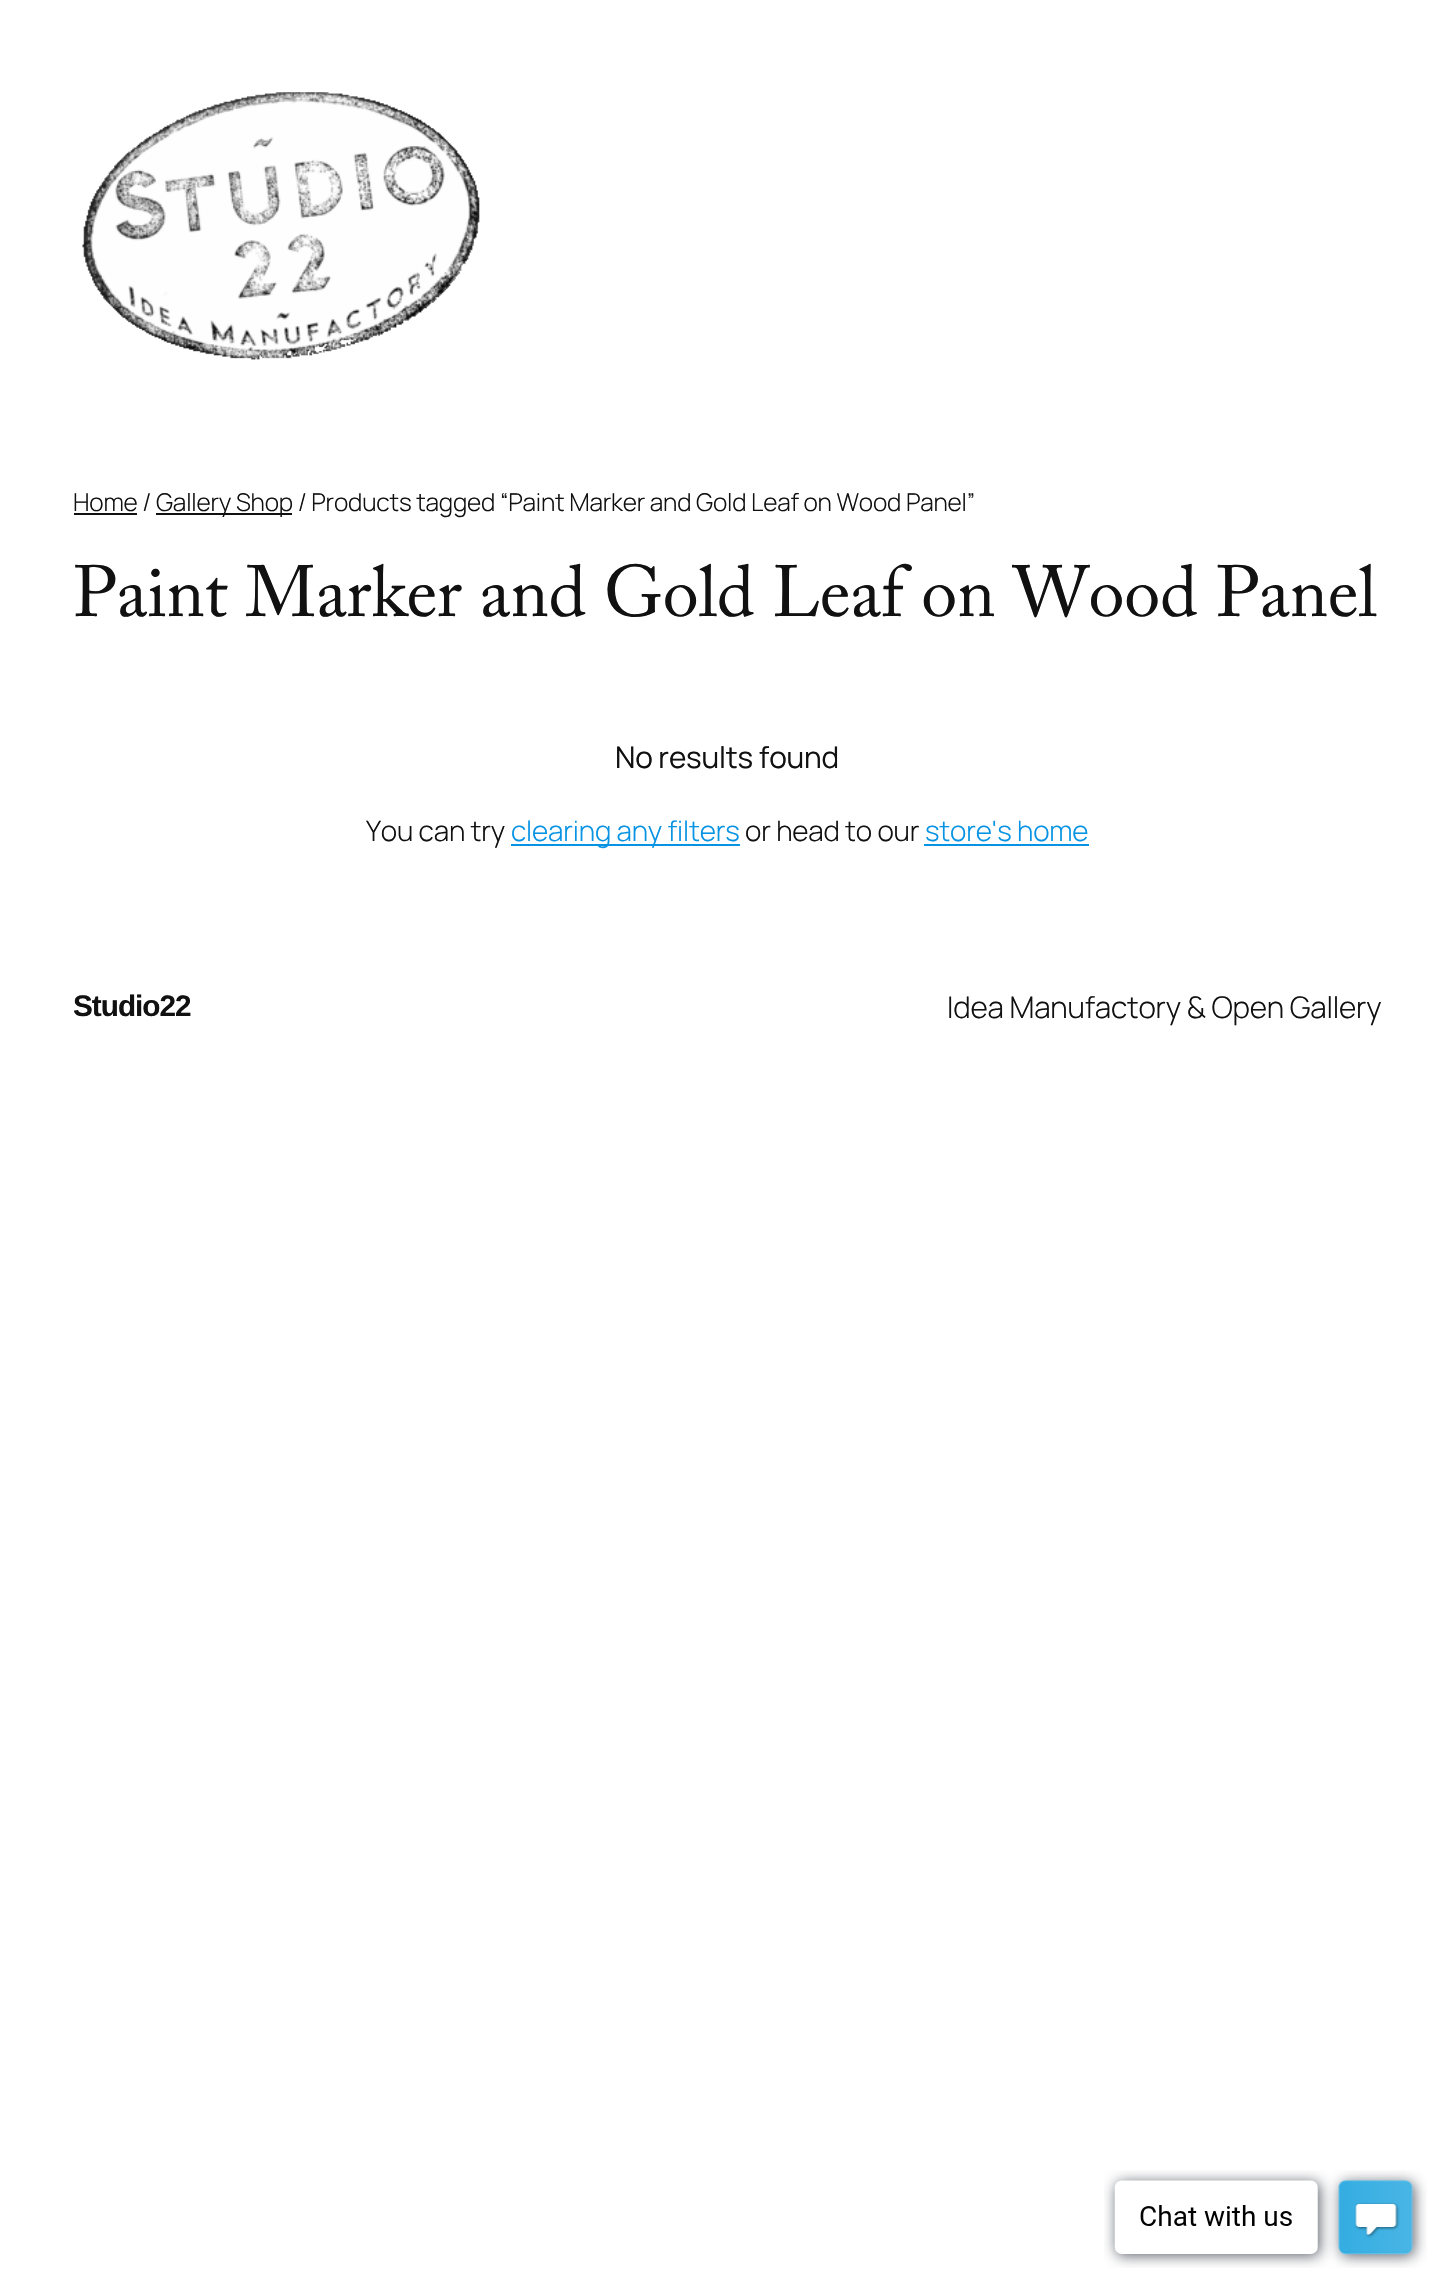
void draw(SkCanvas* canvas) {
	SkPaint fill;
	fill.setAntiAlias(true);
	auto makeFont = [&](const char* family, int weight, float size, bool italic = false) {
		SkFontStyle style(weight, SkFontStyle::kNormal_Width,
			italic ? SkFontStyle::kItalic_Slant : SkFontStyle::kUpright_Slant);
		SkFont result(fontMgr->matchFamilyStyle(family, style), size);
		result.setSubpixel(true);
		return result;
	};
	auto spacedText = [&](const char* s, float x, float y, const SkFont& font, const SkPaint& ink, float letter, float word) {
		std::vector<SkGlyphID> glyphs(font.countText(s, strlen(s), SkTextEncoding::kUTF8));
		std::vector<float> xs(glyphs.size());
		font.textToGlyphs(s, strlen(s), SkTextEncoding::kUTF8, glyphs);
		font.getXPos(glyphs, xs, x);
		float extra = 0;
		for (size_t i = 0; i < glyphs.size(); i++) {
			xs[i] += extra;
			extra += letter + word * (glyphs[i] == font.unicharToGlyph(' '));
		}
		canvas->drawTextBlob(SkTextBlob::MakeFromPosHGlyphs(glyphs, xs, y, font), 0, 0, ink);
	};
	auto box = [&](float l, float t, float r, float b) {
		canvas->drawRect(SkRect::MakeLTRB(l, t, r, b), fill);
	};
	auto picture = [&](const char* path, float l, float t, float r, float b) {
		auto image = SkImages::DeferredFromEncodedData(SkData::MakeFromFileName(path));
		canvas->drawImageRect(image, SkRect::MakeLTRB(l, t, r, b), SkSamplingOptions());
	};
	canvas->clear(0xFFFFFFFF);
	picture("image0.png", 82, 92, 480, 360);
	fill.setColor(0xFF111111);
	box(74, 513, 137, 515);
	box(156, 513, 292, 515);
	fill.setColor(0xFF0693E3);
	box(511, 844, 740, 846);
	box(924, 844, 1089, 846);
	picture("image1.png", 1104, 2170, 1427, 2268);
	auto font1 = makeFont("Manrope", 300, 24.5f);
	fill.setColor(0xFF111111);
	spacedText("Home /", 73, 511, font1, fill, -0.18f, 0);
	spacedText("Gallery Shop / Products tagged “Paint Marker and Gold Leaf on Wood Panel”", 156, 511, font1, fill, -0.18f, 0);
	auto font2 = makeFont("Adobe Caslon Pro", 400, 72.1f);
	spacedText("Paint Marker and Gold Leaf on Wood Panel", 73, 616, font2, fill, -0.18f, 0);
	auto font3 = makeFont("Manrope", 400, 29.75f);
	spacedText("No results found", 615, 768, font3, fill, -0.18f, 0);
	auto font4 = makeFont("Manrope", 300, 28);
	spacedText("You can try", 366, 841, font4, fill, -0.18f, 0);
	fill.setColor(0xFF0693E3);
	spacedText("clearing any filters", 511, 841, font4, fill, -0.18f, 0);
	fill.setColor(0xFF111111);
	spacedText("or head to our", 745, 841, font4, fill, -0.18f, 0);
	fill.setColor(0xFF0693E3);
	spacedText("store's home", 925, 841, font4, fill, -0.18f, 0);
	auto font5 = makeFont("Liberation Sans", 700, 29.75f);
	fill.setColor(0xFF111111);
	spacedText("Studio22", 73, 1016, font5, fill, -1, 0);
	auto font6 = makeFont("Manrope", 300, 29.75f);
	spacedText("Idea Manufactory & Open Gallery", 947, 1018, font6, fill, -0.18f, 0);
}
